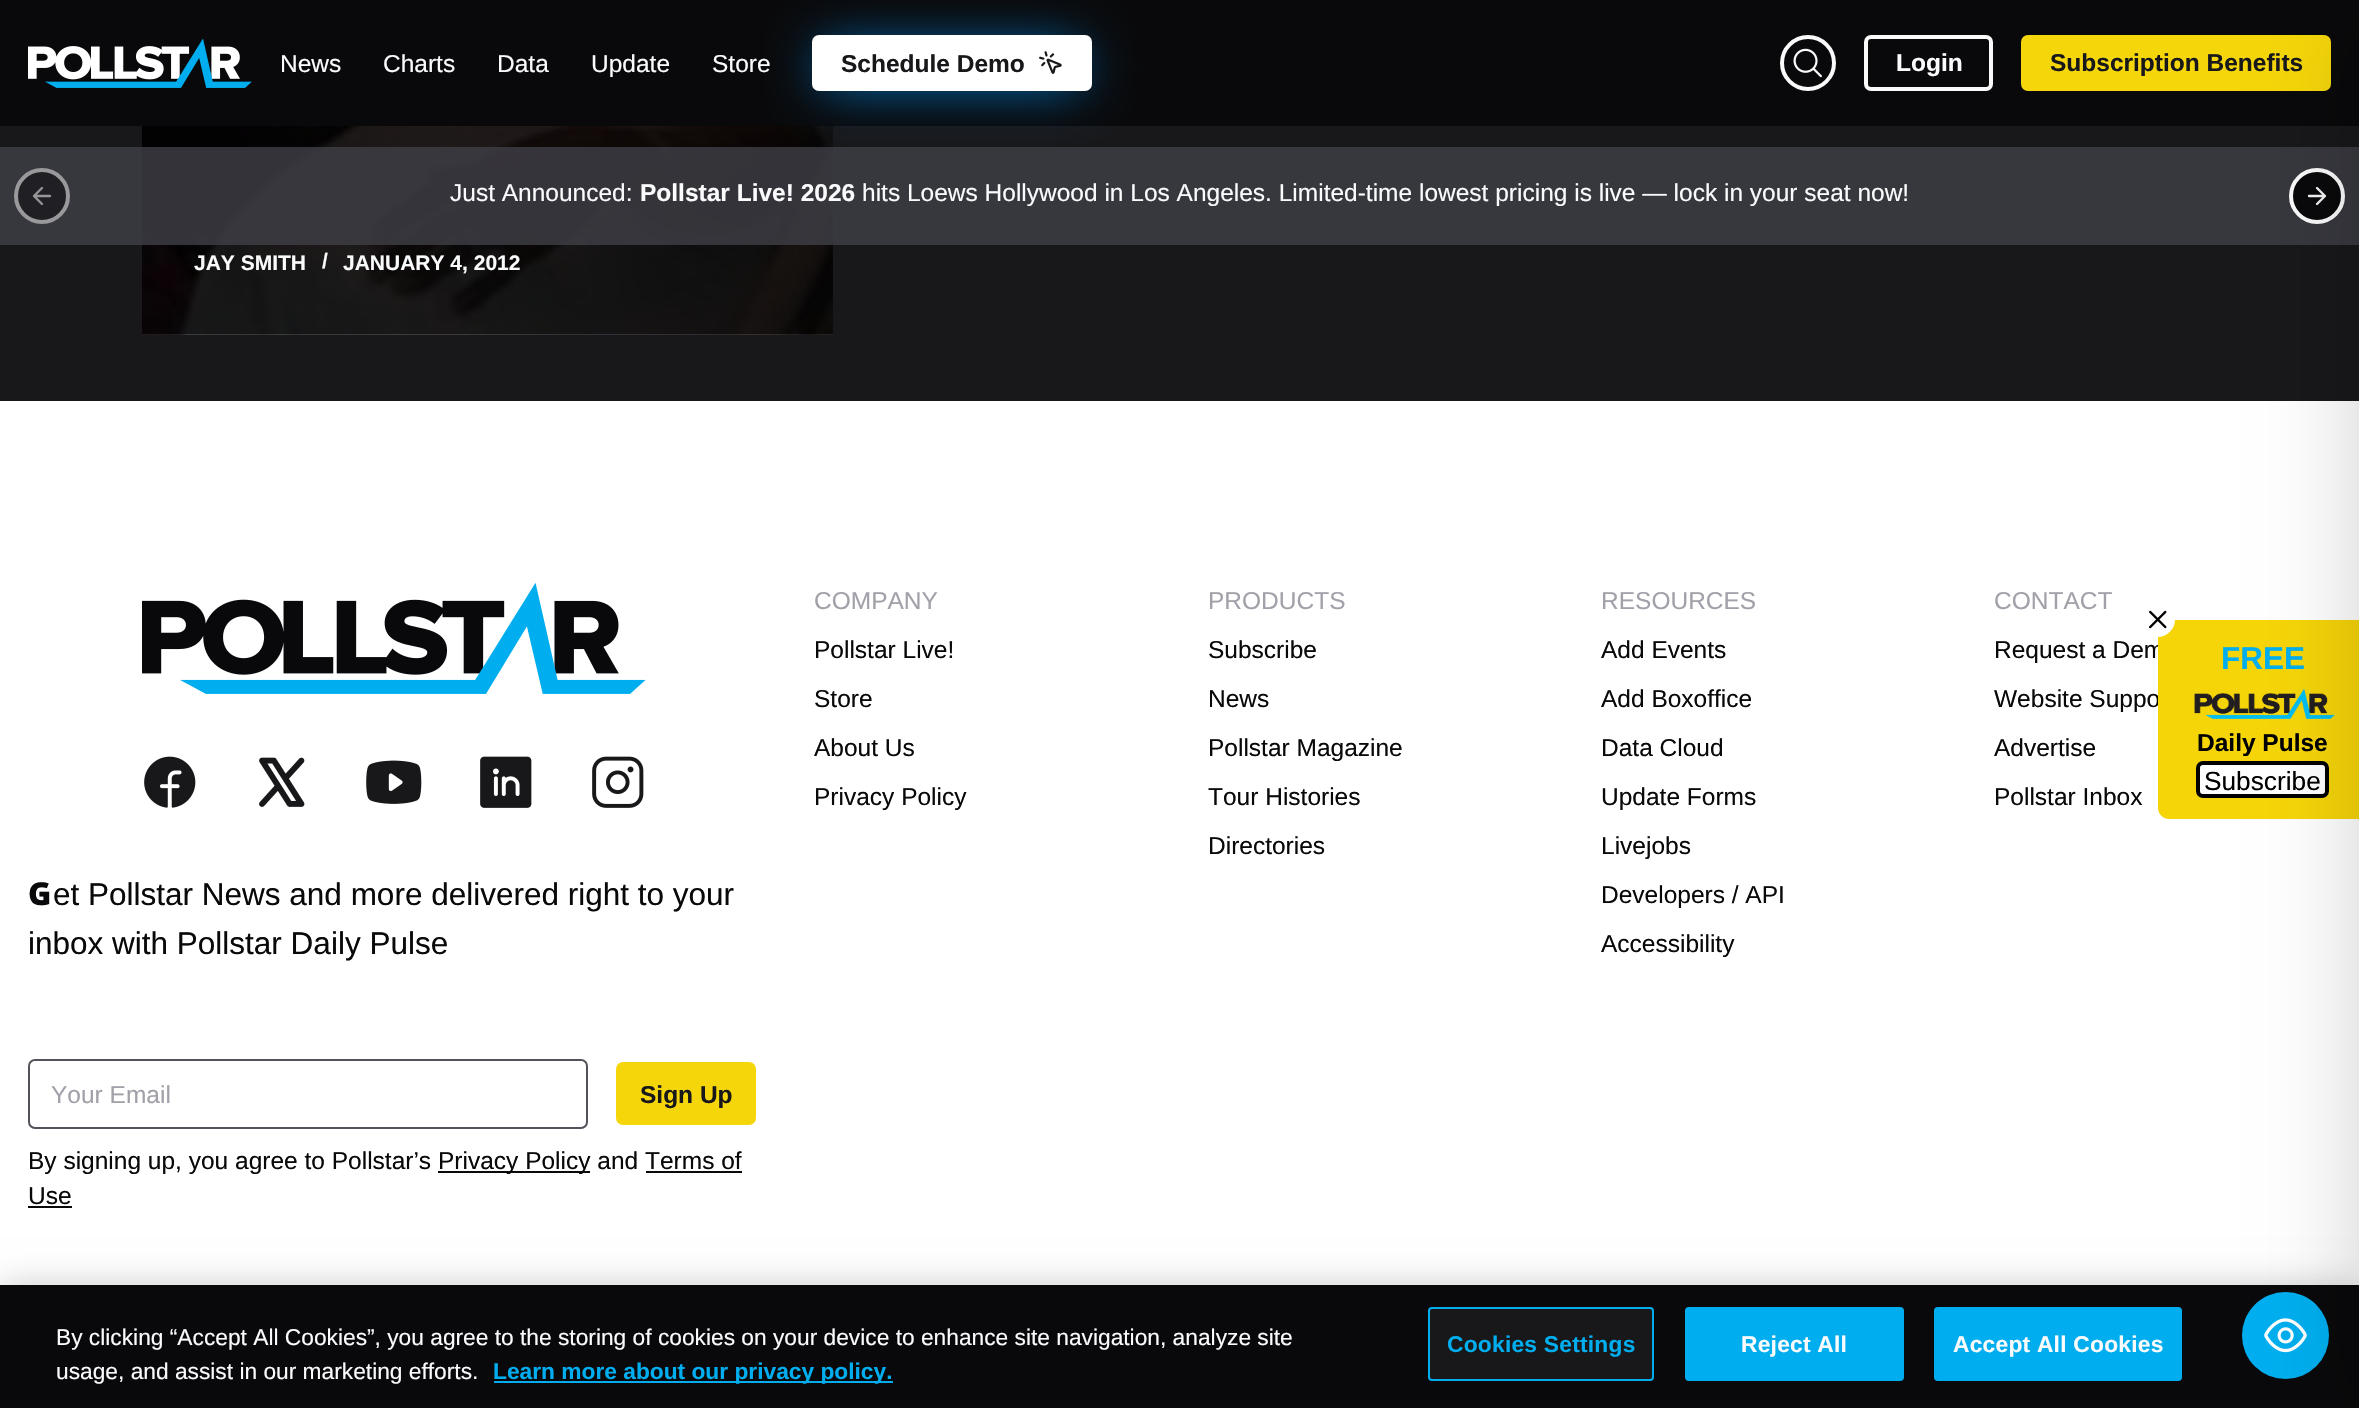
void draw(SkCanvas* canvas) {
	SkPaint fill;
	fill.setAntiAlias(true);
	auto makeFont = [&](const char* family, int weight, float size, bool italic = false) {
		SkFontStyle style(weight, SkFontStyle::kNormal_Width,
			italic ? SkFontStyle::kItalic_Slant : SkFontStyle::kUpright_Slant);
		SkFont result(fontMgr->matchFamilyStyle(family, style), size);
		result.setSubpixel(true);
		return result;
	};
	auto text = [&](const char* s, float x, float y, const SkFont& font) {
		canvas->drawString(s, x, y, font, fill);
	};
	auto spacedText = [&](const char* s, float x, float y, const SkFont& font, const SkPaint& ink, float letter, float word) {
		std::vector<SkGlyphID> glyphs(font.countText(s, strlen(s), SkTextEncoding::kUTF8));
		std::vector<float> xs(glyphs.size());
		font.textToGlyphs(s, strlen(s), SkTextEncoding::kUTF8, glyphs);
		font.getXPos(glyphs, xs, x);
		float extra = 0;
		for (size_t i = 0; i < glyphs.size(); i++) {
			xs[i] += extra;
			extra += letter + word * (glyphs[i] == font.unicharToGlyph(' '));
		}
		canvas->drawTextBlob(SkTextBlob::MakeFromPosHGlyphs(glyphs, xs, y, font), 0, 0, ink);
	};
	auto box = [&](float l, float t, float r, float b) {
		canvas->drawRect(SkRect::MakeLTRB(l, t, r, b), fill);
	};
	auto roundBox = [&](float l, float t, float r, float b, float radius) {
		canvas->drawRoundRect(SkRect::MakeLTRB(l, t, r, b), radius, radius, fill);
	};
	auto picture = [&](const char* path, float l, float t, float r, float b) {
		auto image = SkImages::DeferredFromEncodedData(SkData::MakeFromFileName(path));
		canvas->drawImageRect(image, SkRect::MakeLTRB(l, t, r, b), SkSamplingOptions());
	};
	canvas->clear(0xFF18181B);
	fill.setColor(0xFF09090B);
	box(0, 0, 2359, 126);
	picture("image0.png", 28, 39, 252, 88);
	picture("image3.png", 141, 126, 833, 335);
	fill.setColor(0xCC3F3F46);
	box(0, 147, 2359, 245);
	fill.setColor(0xEB0093F5);
	fill.setMaskFilter(SkMaskFilter::MakeBlur(kNormal_SkBlurStyle, 26));
	canvas->drawRect(SkRect::MakeLTRB(821, 49, 1080, 84), fill);
	fill.setMaskFilter(nullptr);
	fill.setColor(0xFFFFFFFF);
	roundBox(812, 35, 1092, 91, 7);
	picture("image1.png", 1039, 51, 1062, 74);
	fill.setStyle(SkPaint::kStroke_Style);
	fill.setStrokeWidth(4);
	fill.setColor(0xFFFAFAFA);
	canvas->drawCircle(1808, 63, 26, fill);
	picture("image2.png", 1793, 48, 1822, 78);
	canvas->drawRoundRect(SkRect::MakeLTRB(1866, 37, 1991, 89), 5, 5, fill);
	fill.setStyle(SkPaint::kFill_Style);
	fill.setColor(0xFFF5D60A);
	roundBox(2021, 35, 2331, 91, 7);
	fill.setColor(0xFF202024);
	canvas->drawCircle(42, 196, 26, fill);
	fill.setStyle(SkPaint::kStroke_Style);
	fill.setColor(0xFF99999C);
	canvas->drawCircle(42, 196, 26, fill);
	fill.setStrokeWidth(2.3f);
	fill.setStrokeCap(SkPaint::kRound_Cap);
	fill.setStrokeJoin(SkPaint::kRound_Join);
	fill.setColor(0xFF969699);
	canvas->drawPath(SkPathBuilder().moveTo(42, 204).lineTo(34, 196).lineTo(42, 188).moveTo(50, 196).lineTo(34, 196).detach(), fill);
	fill.setStyle(SkPaint::kFill_Style);
	fill.setColor(0xFF09090B);
	canvas->drawCircle(2317, 196, 26, fill);
	fill.setStyle(SkPaint::kStroke_Style);
	fill.setStrokeWidth(4);
	fill.setStrokeCap(SkPaint::kButt_Cap);
	fill.setStrokeJoin(SkPaint::kMiter_Join);
	fill.setColor(0xFFFAFAFA);
	canvas->drawCircle(2317, 196, 26, fill);
	fill.setStrokeWidth(2.3f);
	fill.setStrokeCap(SkPaint::kRound_Cap);
	fill.setStrokeJoin(SkPaint::kRound_Join);
	fill.setColor(0xFFF4F4F5);
	canvas->drawPath(SkPathBuilder().moveTo(2309, 196).lineTo(2325, 196).moveTo(2317, 188).lineTo(2325, 196).lineTo(2317, 204).detach(), fill);
	fill.setStyle(SkPaint::kFill_Style);
	fill.setColor(0xFFFFFFFF);
	box(0, 401, 2359, 1285);
	picture("image4.png", 142, 583, 646, 694);
	picture("image5.png", 144, 756, 196, 808);
	picture("image6.png", 259, 757, 305, 807);
	picture("image7.png", 366, 760, 422, 804);
	picture("image8.png", 480, 756, 532, 808);
	picture("image9.png", 592, 756, 644, 808);
	fill.setStyle(SkPaint::kStroke_Style);
	fill.setStrokeWidth(2);
	fill.setStrokeCap(SkPaint::kButt_Cap);
	fill.setStrokeJoin(SkPaint::kMiter_Join);
	fill.setColor(0xFF52525B);
	canvas->drawRoundRect(SkRect::MakeLTRB(29, 1060, 587, 1128), 6, 6, fill);
	fill.setStyle(SkPaint::kFill_Style);
	fill.setColor(0xFFF5D60A);
	roundBox(616, 1062, 756, 1125, 7);
	fill.setColor(0xFF09090B);
	box(438, 1171, 590, 1173);
	box(646, 1171, 742, 1173);
	box(28, 1206, 72, 1208);
	fill.setColor(0x33000000);
	fill.setMaskFilter(SkMaskFilter::MakeBlur(kNormal_SkBlurStyle, 16));
	canvas->drawRect(SkRect::MakeLTRB(0, 1285, 2359, 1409), fill);
	fill.setMaskFilter(nullptr);
	fill.setColor(0xFF09090B);
	box(0, 1285, 2359, 1408);
	fill.setColor(0xFF00AEEF);
	box(494, 1381, 893, 1383);
	fill.setColor(0xFF18181B);
	canvas->drawRoundRect(SkRect::MakeLTRB(1429, 1308, 1653, 1380), 3, 3, fill);
	fill.setStyle(SkPaint::kStroke_Style);
	fill.setColor(0xFF00AEEF);
	canvas->drawRoundRect(SkRect::MakeLTRB(1429, 1308, 1653, 1380), 3, 3, fill);
	fill.setStyle(SkPaint::kFill_Style);
	canvas->drawRoundRect(SkRect::MakeLTRB(1686, 1308, 1903, 1380), 3, 3, fill);
	fill.setStyle(SkPaint::kStroke_Style);
	canvas->drawRoundRect(SkRect::MakeLTRB(1686, 1308, 1903, 1380), 3, 3, fill);
	fill.setStyle(SkPaint::kFill_Style);
	canvas->drawRoundRect(SkRect::MakeLTRB(1935, 1308, 2181, 1380), 3, 3, fill);
	fill.setStyle(SkPaint::kStroke_Style);
	canvas->drawRoundRect(SkRect::MakeLTRB(1935, 1308, 2181, 1380), 3, 3, fill);
	fill.setStyle(SkPaint::kFill_Style);
	canvas->drawCircle(2285.5f, 1335.5f, 43.5f, fill);
	picture("image12.png", 2264, 1318, 2307, 1353);
	auto font1 = makeFont("Liberation Sans", 400, 24.5f);
	fill.setColor(0xFFFAFBFC);
	text("News", 280, 72, font1);
	text("Charts", 383, 72, font1);
	text("Data", 497, 72, font1);
	text("Update", 591, 72, font1);
	text("Store", 712, 72, font1);
	auto font2 = makeFont("Liberation Sans", 700, 24.5f);
	fill.setColor(0xFF18181B);
	text("Schedule Demo", 841, 72, font2);
	fill.setColor(0xFFFAFBFC);
	text("Login", 1896, 71, font2);
	fill.setColor(0xFF18181B);
	text("Subscription Benefits", 2050, 71, font2);
	fill.setColor(0xFFFAFBFC);
	text("Just Announced:", 450, 201, font1);
	text("Pollstar Live! 2026", 640, 201, font2);
	text("hits Loews Hollywood in Los Angeles. Limited-time lowest pricing is live — lock in your seat now!", 862, 201, font1);
	auto font3 = makeFont("Liberation Sans", 700, 21);
	text("JAY SMITH", 194, 270, font3);
	text("/", 322, 268, font3);
	text("JANUARY 4, 2012", 343, 270, font3);
	fill.setColor(0xFFA1A1AA);
	text("COMPANY", 814, 609, font1);
	fill.setColor(0xFF09090B);
	text("Pollstar Live!", 814, 658, font1);
	text("Store", 814, 707, font1);
	text("About Us", 814, 756, font1);
	text("Privacy Policy", 814, 805, font1);
	fill.setColor(0xFFA1A1AA);
	text("PRODUCTS", 1208, 609, font1);
	fill.setColor(0xFF09090B);
	text("Subscribe", 1208, 658, font1);
	text("News", 1208, 707, font1);
	text("Pollstar Magazine", 1208, 756, font1);
	text("Tour Histories", 1208, 805, font1);
	text("Directories", 1208, 854, font1);
	fill.setColor(0xFFA1A1AA);
	text("RESOURCES", 1601, 609, font1);
	fill.setColor(0xFF09090B);
	text("Add Events", 1601, 658, font1);
	text("Add Boxoffice", 1601, 707, font1);
	text("Data Cloud", 1601, 756, font1);
	text("Update Forms", 1601, 805, font1);
	text("Livejobs", 1601, 854, font1);
	text("Developers / API", 1601, 903, font1);
	text("Accessibility", 1601, 952, font1);
	fill.setColor(0xFFA1A1AA);
	text("CONTACT", 1994, 609, font1);
	fill.setColor(0xFF09090B);
	text("Request a Dem", 1994, 658, font1);
	text("Website Suppo", 1994, 707, font1);
	text("Advertise", 1994, 756, font1);
	text("Pollstar Inbox", 1994, 805, font1);
	auto font4 = makeFont("Noto Sans", 900, 31.5f);
	text("G", 28, 905, font4);
	auto font5 = makeFont("Liberation Sans", 400, 31.5f);
	text("et Pollstar News and more delivered right to your", 53, 905, font5);
	text("inbox with Pollstar Daily Pulse", 28, 954, font5);
	fill.setColor(0xFFA1A1AA);
	text("Your Email", 51, 1103, font1);
	fill.setColor(0xFF18181B);
	text("Sign Up", 640, 1103, font2);
	fill.setColor(0xFF09090B);
	text("By signing up, you agree to Pollstar’s", 28, 1169, font1);
	text("Privacy Policy and Terms of", 438, 1169, font1);
	text("Use", 28, 1204, font1);
	fill.setColor(0xFFF6D508);
	canvas->drawPath(SkPathBuilder().moveTo(2169, 620).lineTo(2359, 620).lineTo(2359, 819).lineTo(2169, 819).cubicTo(2163, 819, 2158, 814, 2158, 808).lineTo(2158, 631).cubicTo(2158, 625, 2163, 620, 2169, 620).close().detach(), fill);
	fill.setColor(0xFFFFFFFF);
	canvas->drawCircle(2157.5f, 619.5f, 17.5f, fill);
	picture("image10.png", 2149, 610, 2167, 629);
	auto font6 = makeFont("Liberation Sans", 700, 31.5f);
	fill.setColor(0xFF00AEEF);
	text("FREE", 2221, 669, font6);
	picture("image11.png", 2194, 688, 2335, 719);
	fill.setColor(0xFF000000);
	text("Daily Pulse", 2197, 751, font2);
	fill.setColor(0xFFFFFFFF);
	canvas->drawRoundRect(SkRect::MakeLTRB(2198, 763, 2327, 796), 5, 5, fill);
	fill.setStyle(SkPaint::kStroke_Style);
	fill.setStrokeWidth(4);
	fill.setColor(0xFF000000);
	canvas->drawRoundRect(SkRect::MakeLTRB(2198, 763, 2327, 796), 5, 5, fill);
	fill.setStyle(SkPaint::kFill_Style);
	fill.setColor(0x33000000);
	fill.setMaskFilter(SkMaskFilter::MakeBlur(kNormal_SkBlurStyle, 52.5f));
	canvas->drawRect(SkRect::MakeLTRB(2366, 18, 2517, 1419), fill);
	fill.setMaskFilter(nullptr);
	auto font7 = makeFont("Liberation Sans", 400, 26.25f);
	fill.setColor(0xFF000000);
	text("Subscribe", 2204, 790, font7);
	auto font8 = makeFont("Liberation Sans", 400, 22.75f);
	fill.setColor(0xFFFAFBFC);
	text("By clicking “Accept All Cookies”, you agree to the storing of cookies on your device to enhance site navigation, analyze site", 56, 1345, font8);
	text("usage, and assist in our marketing efforts.", 56, 1379, font8);
	auto font9 = makeFont("Liberation Sans", 700, 22.75f);
	fill.setColor(0xFF00AEEF);
	text("Learn more about our privacy policy.", 493, 1379, font9);
	spacedText("Cookies Settings", 1447, 1352, font9, fill, 0.25f, 0);
	fill.setColor(0xFFFAFBFC);
	spacedText("Reject All", 1741, 1352, font9, fill, 0.25f, 0);
	spacedText("Accept All Cookies", 1953, 1352, font9, fill, 0.25f, 0);
}
